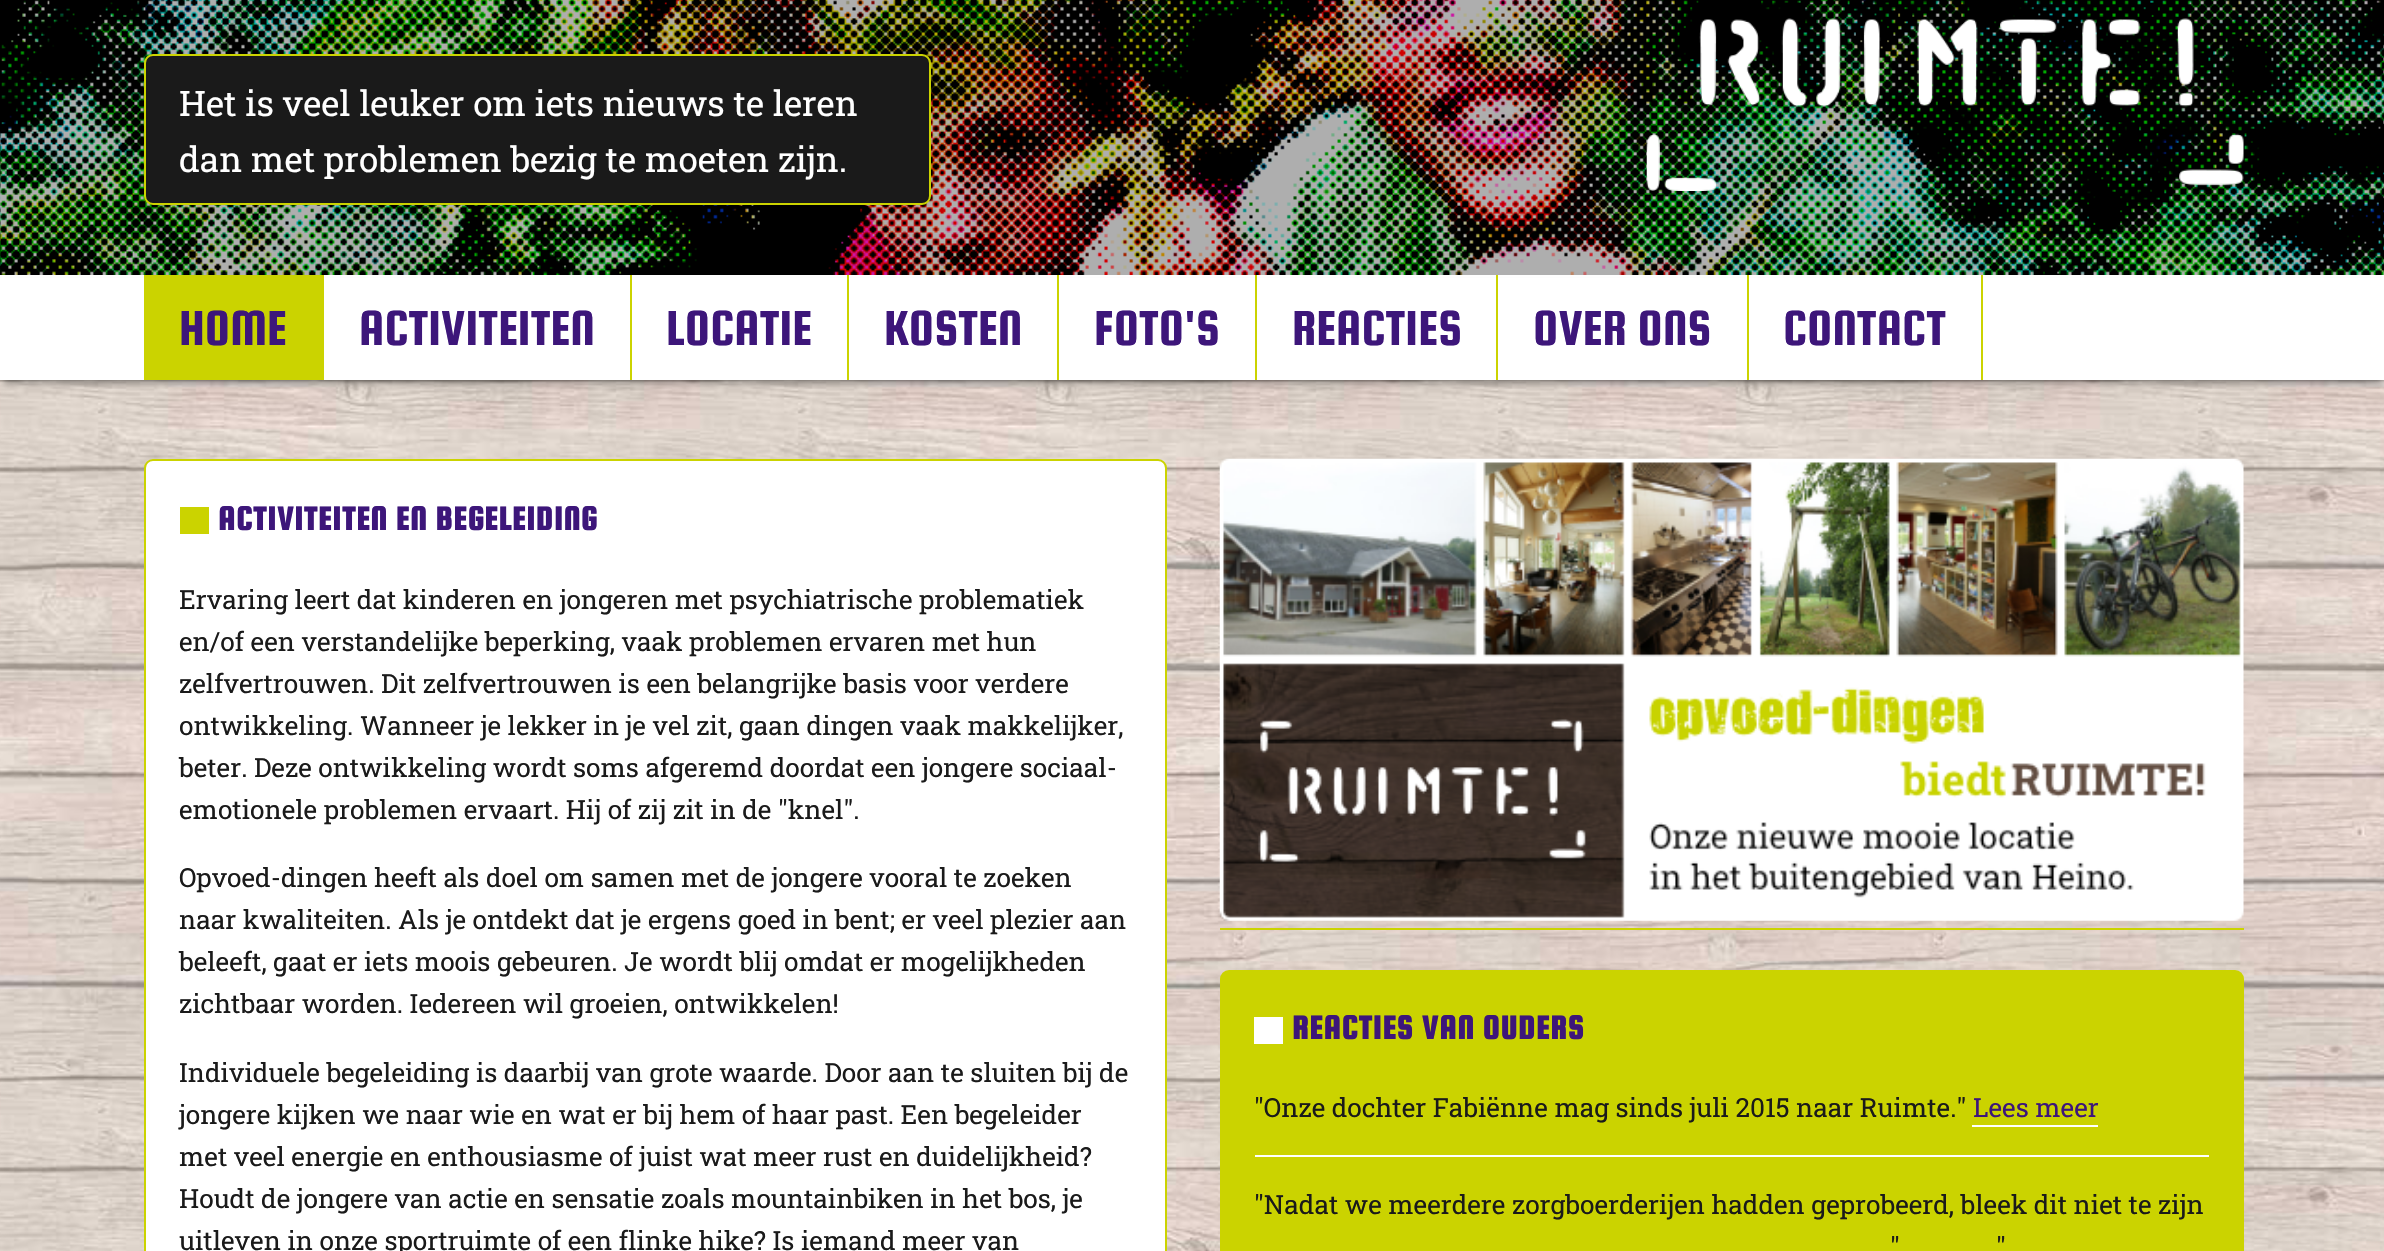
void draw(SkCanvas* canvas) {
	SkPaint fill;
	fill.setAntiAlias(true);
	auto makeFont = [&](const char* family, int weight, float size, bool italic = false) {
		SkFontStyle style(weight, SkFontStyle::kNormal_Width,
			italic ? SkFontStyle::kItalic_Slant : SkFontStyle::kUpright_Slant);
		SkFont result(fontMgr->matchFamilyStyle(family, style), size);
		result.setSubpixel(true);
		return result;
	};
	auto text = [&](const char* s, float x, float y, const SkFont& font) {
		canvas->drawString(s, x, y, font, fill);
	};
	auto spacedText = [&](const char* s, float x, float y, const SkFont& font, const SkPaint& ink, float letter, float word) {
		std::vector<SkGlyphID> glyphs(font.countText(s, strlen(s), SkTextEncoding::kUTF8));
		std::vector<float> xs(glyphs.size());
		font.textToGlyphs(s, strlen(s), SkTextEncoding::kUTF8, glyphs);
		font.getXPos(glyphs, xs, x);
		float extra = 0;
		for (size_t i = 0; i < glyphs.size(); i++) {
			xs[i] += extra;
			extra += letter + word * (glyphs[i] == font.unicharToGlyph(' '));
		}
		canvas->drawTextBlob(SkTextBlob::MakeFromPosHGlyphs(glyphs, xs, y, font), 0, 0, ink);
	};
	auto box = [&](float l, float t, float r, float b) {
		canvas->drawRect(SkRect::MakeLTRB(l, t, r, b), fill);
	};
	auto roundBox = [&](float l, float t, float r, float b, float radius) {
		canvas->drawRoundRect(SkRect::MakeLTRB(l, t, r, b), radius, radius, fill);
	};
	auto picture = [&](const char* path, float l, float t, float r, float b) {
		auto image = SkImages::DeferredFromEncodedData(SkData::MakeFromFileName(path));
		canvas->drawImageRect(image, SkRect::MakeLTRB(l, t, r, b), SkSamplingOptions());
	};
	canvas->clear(0xFFFFFFFF);
	picture("image0.png", 0, 380, 2384, 1251);
	picture("image1.png", 0, 0, 2384, 275);
	fill.setColor(0xFF1A1A1A);
	canvas->drawRoundRect(SkRect::MakeLTRB(145, 55, 930, 204), 8, 8, fill);
	fill.setStyle(SkPaint::kStroke_Style);
	fill.setStrokeWidth(2);
	fill.setColor(0xFFCBD300);
	canvas->drawRoundRect(SkRect::MakeLTRB(145, 55, 930, 204), 8, 8, fill);
	picture("image2.png", 1646, 18, 2244, 191);
	fill.setStyle(SkPaint::kFill_Style);
	fill.setColor(0x66000000);
	fill.setMaskFilter(SkMaskFilter::MakeBlur(kNormal_SkBlurStyle, 3.5f));
	canvas->drawRect(SkRect::MakeLTRB(4, 285, 2382, 383), fill);
	fill.setMaskFilter(nullptr);
	fill.setColor(0xFFFFFFFF);
	box(0, 278, 2384, 380);
	fill.setColor(0xFFCBD300);
	box(144, 275, 324, 380);
	box(630, 275, 632, 380);
	box(847, 275, 849, 380);
	box(1057, 275, 1059, 380);
	box(1255, 275, 1257, 380);
	box(1496, 275, 1498, 380);
	box(1981, 275, 1983, 380);
	box(1747, 275, 1749, 380);
	fill.setColor(0xFFFFFFFF);
	canvas->drawRoundRect(SkRect::MakeLTRB(145, 460, 1166, 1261), 8, 8, fill);
	fill.setStyle(SkPaint::kStroke_Style);
	fill.setColor(0xFFCBD300);
	canvas->drawRoundRect(SkRect::MakeLTRB(145, 460, 1166, 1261), 8, 8, fill);
	fill.setStyle(SkPaint::kFill_Style);
	box(180, 507, 209, 534);
	picture("image3.png", 1219, 458, 2244, 921);
	box(1220, 928, 2244, 930);
	roundBox(1220, 970, 2244, 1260, 9);
	fill.setColor(0xFFFFFFFF);
	box(1254, 1017, 1283, 1044);
	box(1972, 1125, 2098, 1127);
	box(1255, 1155, 2209, 1157);
	auto font1 = makeFont("Roboto Slab", 400, 35);
	text("Het is veel leuker om iets nieuws te leren", 179, 116, font1);
	text("dan met problemen bezig te moeten zijn.", 179, 172, font1);
	auto font2 = makeFont("Squada One", 400, 52.5f);
	fill.setColor(0xFF3D167A);
	text("HOME", 179, 345, font2);
	text("ACTIVITEITEN", 359, 345, font2);
	text("LOCATIE", 666, 345, font2);
	text("KOSTEN", 884, 345, font2);
	text("FOTO'S", 1094, 345, font2);
	text("REACTIES", 1292, 345, font2);
	text("OVER ONS", 1533, 345, font2);
	text("CONTACT", 1783, 345, font2);
	auto font3 = makeFont("Squada One", 700, 35);
	spacedText("ACTIVITEITEN EN BEGELEIDING", 218, 530, font3, fill, 1.05f, 0);
	auto font4 = makeFont("Roboto Slab", 400, 26.25f);
	fill.setColor(0xFF1A1A1A);
	text("Ervaring leert dat kinderen en jongeren met psychiatrische problematiek", 179, 609, font4);
	text("en/of een verstandelijke beperking, vaak problemen ervaren met hun", 179, 651, font4);
	text("zelfvertrouwen. Dit zelfvertrouwen is een belangrijke basis voor verdere", 179, 693, font4);
	text("ontwikkeling. Wanneer je lekker in je vel zit, gaan dingen vaak makkelijker,", 179, 735, font4);
	text("beter. Deze ontwikkeling wordt soms afgeremd doordat een jongere sociaal-", 179, 777, font4);
	text("emotionele problemen ervaart. Hij of zij zit in de \"knel\".", 179, 819, font4);
	text("Opvoed-dingen heeft als doel om samen met de jongere vooral te zoeken", 179, 887, font4);
	text("naar kwaliteiten. Als je ontdekt dat je ergens goed in bent; er veel plezier aan", 179, 929, font4);
	text("beleeft, gaat er iets moois gebeuren. Je wordt blij omdat er mogelijkheden", 179, 971, font4);
	text("zichtbaar worden. Iedereen wil groeien, ontwikkelen!", 179, 1013, font4);
	text("Individuele begeleiding is daarbij van grote waarde. Door aan te sluiten bij de", 179, 1082, font4);
	text("jongere kijken we naar wie en wat er bij hem of haar past. Een begeleider", 179, 1124, font4);
	text("met veel energie en enthousiasme of juist wat meer rust en duidelijkheid?", 179, 1166, font4);
	text("Houdt de jongere van actie en sensatie zoals mountainbiken in het bos, je", 179, 1208, font4);
	text("uitleven in onze sportruimte of een flinke hike? Is iemand meer van", 179, 1250, font4);
	fill.setColor(0xFF3D167A);
	spacedText("REACTIES VAN OUDERS", 1292, 1039, font3, fill, 1.05f, 0);
	fill.setColor(0xFF1A1A1A);
	text("\"Onze dochter Fabiënne mag sinds juli 2015 naar Ruimte.\"", 1254, 1117, font4);
	fill.setColor(0xFF3D167A);
	text("Lees meer", 1973, 1117, font4);
	fill.setColor(0xFF1A1A1A);
	text("\"Nadat we meerdere zorgboerderijen hadden geprobeerd, bleek dit niet te zijn", 1254, 1214, font4);
	text("\"", 1890, 1256, font4);
	text("\"", 1996, 1256, font4);
}
